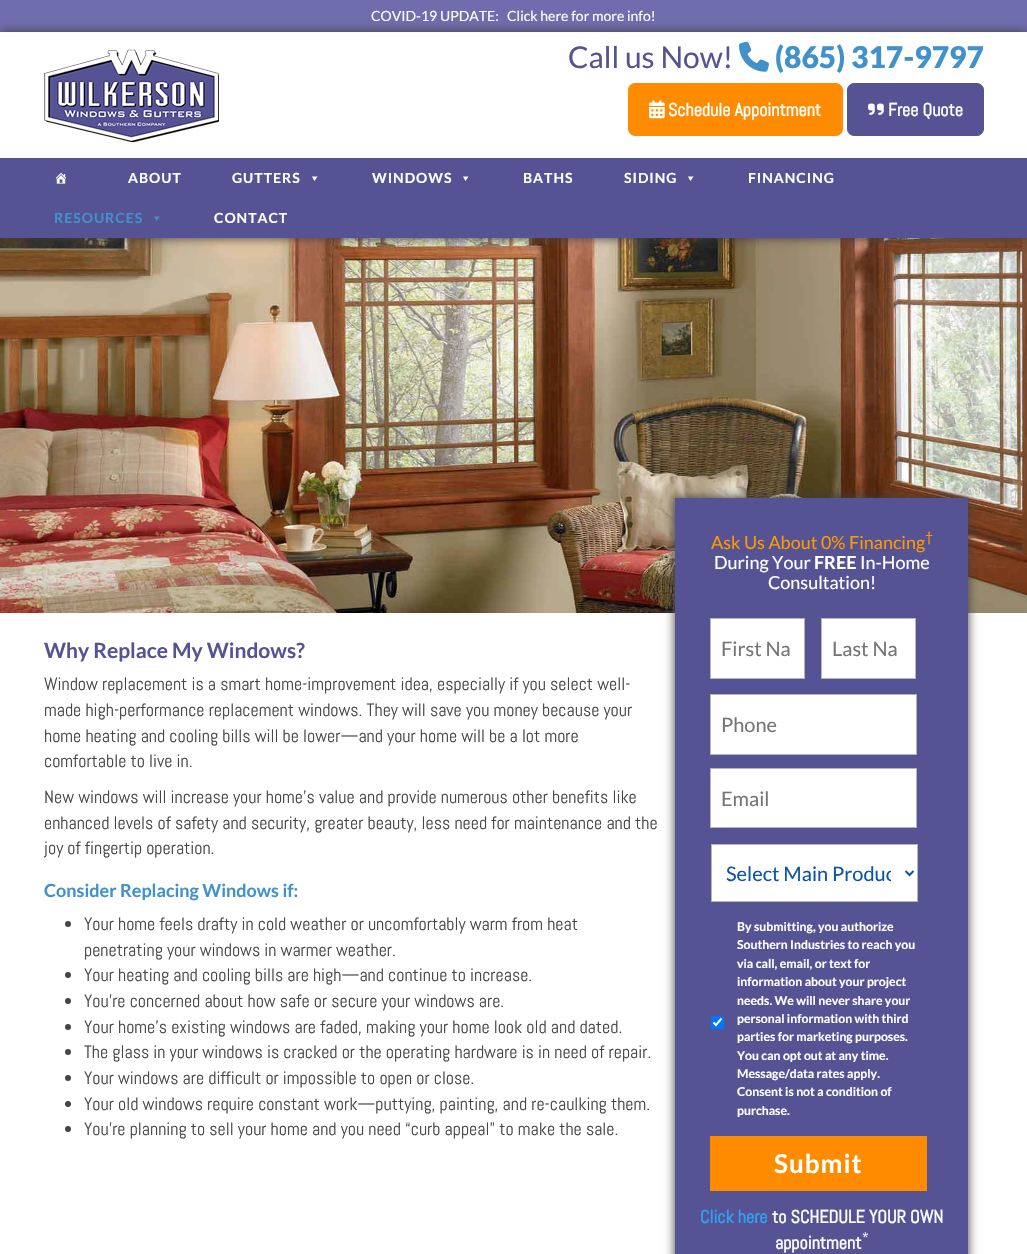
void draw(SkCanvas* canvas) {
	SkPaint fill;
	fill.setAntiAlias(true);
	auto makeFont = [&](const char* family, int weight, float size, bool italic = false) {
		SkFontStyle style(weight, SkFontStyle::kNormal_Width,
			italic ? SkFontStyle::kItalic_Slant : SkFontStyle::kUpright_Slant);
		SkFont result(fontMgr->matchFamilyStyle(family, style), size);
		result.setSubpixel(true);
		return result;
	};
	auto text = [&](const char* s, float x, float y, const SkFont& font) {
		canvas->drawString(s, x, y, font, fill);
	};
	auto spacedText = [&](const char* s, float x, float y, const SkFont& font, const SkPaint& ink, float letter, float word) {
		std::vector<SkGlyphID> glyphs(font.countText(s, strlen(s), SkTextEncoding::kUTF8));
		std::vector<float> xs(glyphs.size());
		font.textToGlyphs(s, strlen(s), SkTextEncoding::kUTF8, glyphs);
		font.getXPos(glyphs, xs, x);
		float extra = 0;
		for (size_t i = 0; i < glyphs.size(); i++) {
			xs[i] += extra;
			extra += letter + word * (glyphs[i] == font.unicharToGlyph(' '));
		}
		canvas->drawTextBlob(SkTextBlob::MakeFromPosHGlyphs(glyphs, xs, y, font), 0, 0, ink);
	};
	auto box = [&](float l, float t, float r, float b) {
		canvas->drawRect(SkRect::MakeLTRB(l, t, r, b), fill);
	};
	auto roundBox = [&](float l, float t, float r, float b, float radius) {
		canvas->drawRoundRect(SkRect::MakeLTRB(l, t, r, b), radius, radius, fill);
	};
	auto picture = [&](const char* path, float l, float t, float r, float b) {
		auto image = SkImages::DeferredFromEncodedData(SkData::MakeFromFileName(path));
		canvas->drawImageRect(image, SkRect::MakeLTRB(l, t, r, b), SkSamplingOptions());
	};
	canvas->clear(0xFFFFFFFF);
	fill.setColor(0xFF6F6DAD);
	box(0, 0, 1027, 32);
	picture("image5.png", 0, 238, 1027, 613);
	canvas->save();
	canvas->clipPath(SkPathBuilder(SkPathFillType::kEvenOdd).moveTo(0, 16).lineTo(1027, 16).lineTo(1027, 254).lineTo(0, 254).close().moveTo(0, 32).lineTo(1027, 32).lineTo(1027, 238).lineTo(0, 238).close().detach(), true);
	fill.setColor(0xFF3F3F3F);
	fill.setMaskFilter(SkMaskFilter::MakeBlur(kNormal_SkBlurStyle, 5));
	canvas->drawRect(SkRect::MakeLTRB(0, 32, 1027, 238), fill);
	fill.setMaskFilter(nullptr);
	canvas->restore();
	fill.setColor(0xFFFEFAF7);
	box(0, 32, 1027, 33);
	picture("image0.png", 44, 49, 219, 143);
	picture("image1.png", 739, 41, 769, 72);
	fill.setColor(0xFFFF8C00);
	canvas->drawRoundRect(SkRect::MakeLTRB(628.5f, 83.5f, 842.5f, 135.5f), 6.5f, 6.5f, fill);
	fill.setStyle(SkPaint::kStroke_Style);
	fill.setStrokeWidth(1);
	canvas->drawRoundRect(SkRect::MakeLTRB(628.5f, 83.5f, 842.5f, 135.5f), 6.5f, 6.5f, fill);
	picture("image2.png", 649, 100, 665, 119);
	fill.setStyle(SkPaint::kFill_Style);
	fill.setColor(0xFF555394);
	canvas->drawRoundRect(SkRect::MakeLTRB(847.5f, 83.5f, 983.5f, 135.5f), 6.5f, 6.5f, fill);
	fill.setStyle(SkPaint::kStroke_Style);
	canvas->drawRoundRect(SkRect::MakeLTRB(847.5f, 83.5f, 983.5f, 135.5f), 6.5f, 6.5f, fill);
	picture("image3.png", 868, 103, 884, 115);
	fill.setStyle(SkPaint::kFill_Style);
	box(0, 158, 1027, 238);
	picture("image4.png", 55, 172, 67, 184);
	fill.setColor(0xFFFFFFFF);
	canvas->drawPath(SkPathBuilder().moveTo(317.5f, 176.5f).lineTo(314.5f, 181).lineTo(312, 176.5f).close().detach(), fill);
	canvas->drawPath(SkPathBuilder().moveTo(468.5f, 176.5f).lineTo(465.5f, 181).lineTo(463, 176.5f).close().detach(), fill);
	canvas->drawPath(SkPathBuilder().moveTo(693.5f, 176.5f).lineTo(690.5f, 181).lineTo(688, 176.5f).close().detach(), fill);
	fill.setColor(0xFF4191CB);
	canvas->drawPath(SkPathBuilder().moveTo(159.5f, 216.5f).lineTo(156.5f, 221).lineTo(154, 216.5f).close().detach(), fill);
	fill.setColor(0xFF474445);
	canvas->drawCircle(68, 924, 3, fill);
	canvas->drawCircle(68, 975, 3, fill);
	canvas->drawCircle(68, 1001, 3, fill);
	canvas->drawCircle(68, 1027, 3, fill);
	canvas->drawCircle(68, 1052, 3, fill);
	canvas->drawCircle(68, 1078, 3, fill);
	canvas->drawCircle(68, 1104, 3, fill);
	canvas->drawCircle(68, 1129, 3, fill);
	fill.setColor(0xFF3F3F3F);
	fill.setMaskFilter(SkMaskFilter::MakeBlur(kNormal_SkBlurStyle, 5));
	canvas->drawRect(SkRect::MakeLTRB(675, 498, 968, 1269), fill);
	fill.setMaskFilter(nullptr);
	fill.setColor(0xFF555394);
	box(675, 498, 968, 1254);
	fill.setColor(0xFFFFFFFF);
	canvas->drawRect(SkRect::MakeLTRB(710.5f, 618.5f, 804.5f, 678.5f), fill);
	fill.setStyle(SkPaint::kStroke_Style);
	fill.setColor(0xFFB5B5B5);
	canvas->drawRect(SkRect::MakeLTRB(710.5f, 618.5f, 804.5f, 678.5f), fill);
	fill.setStyle(SkPaint::kFill_Style);
	fill.setColor(0xFFFFFFFF);
	canvas->drawRect(SkRect::MakeLTRB(821.5f, 618.5f, 915.5f, 678.5f), fill);
	fill.setStyle(SkPaint::kStroke_Style);
	fill.setColor(0xFFB5B5B5);
	canvas->drawRect(SkRect::MakeLTRB(821.5f, 618.5f, 915.5f, 678.5f), fill);
	fill.setStyle(SkPaint::kFill_Style);
	fill.setColor(0xFFFFFFFF);
	canvas->drawRect(SkRect::MakeLTRB(710.5f, 694.5f, 916.5f, 754.5f), fill);
	fill.setStyle(SkPaint::kStroke_Style);
	fill.setColor(0xFFB5B5B5);
	canvas->drawRect(SkRect::MakeLTRB(710.5f, 694.5f, 916.5f, 754.5f), fill);
	fill.setStyle(SkPaint::kFill_Style);
	fill.setColor(0xFFFFFFFF);
	canvas->drawRect(SkRect::MakeLTRB(710.5f, 768.5f, 916.5f, 827.5f), fill);
	fill.setStyle(SkPaint::kStroke_Style);
	fill.setColor(0xFFB5B5B5);
	canvas->drawRect(SkRect::MakeLTRB(710.5f, 768.5f, 916.5f, 827.5f), fill);
	fill.setStyle(SkPaint::kFill_Style);
	fill.setColor(0xFFFFFFFF);
	canvas->drawRect(SkRect::MakeLTRB(711.5f, 844.5f, 917.5f, 901.5f), fill);
	fill.setStyle(SkPaint::kStroke_Style);
	fill.setColor(0xFFB5B5B5);
	canvas->drawRect(SkRect::MakeLTRB(711.5f, 844.5f, 917.5f, 901.5f), fill);
	fill.setStrokeWidth(2);
	fill.setColor(0xFF0B55A2);
	canvas->drawPath(SkPathBuilder().moveTo(905.5f, 871).lineTo(909.5f, 875).lineTo(913.5f, 871).detach(), fill);
	fill.setStyle(SkPaint::kFill_Style);
	fill.setColor(0xFF0075FF);
	roundBox(711, 1016, 724, 1029, 2);
	fill.setStyle(SkPaint::kStroke_Style);
	fill.setStrokeWidth(2.1f);
	fill.setColor(0xFFFFFFFF);
	canvas->drawPath(SkPathBuilder().moveTo(713.5f, 1022.5f).lineTo(716, 1025).lineTo(721.5f, 1018.5f).detach(), fill);
	fill.setStyle(SkPaint::kFill_Style);
	fill.setColor(0xFFFF8C00);
	box(710, 1136, 927, 1191);
	auto font1 = makeFont("Lato", 400, 14);
	fill.setColor(0xFFFFFFFF);
	text("COVID-19 UPDATE:", 371, 21, font1);
	text("Click here for more info!", 507, 21, font1);
	auto font2 = makeFont("Lato", 400, 30);
	fill.setColor(0xFF555394);
	text("Call us Now!", 568, 68, font2);
	auto font3 = makeFont("Lato", 900, 30);
	fill.setColor(0xFF4191CB);
	text("(865) 317-9797", 775, 68, font3);
	auto font4 = makeFont("Abel", 700, 18);
	fill.setColor(0xFFFFFFFF);
	text("Schedule Appointment", 668, 116, font4);
	text("Free Quote", 888, 116, font4);
	auto font5 = makeFont("Lato", 700, 14);
	spacedText("ABOUT", 128, 183, font5, fill, 1, 0);
	spacedText("GUTTERS", 232, 183, font5, fill, 1, 0);
	spacedText("WINDOWS", 372, 183, font5, fill, 1, 0);
	spacedText("BATHS", 523, 183, font5, fill, 1, 0);
	spacedText("SIDING", 624, 183, font5, fill, 1, 0);
	spacedText("FINANCING", 748, 183, font5, fill, 1, 0);
	fill.setColor(0xFF4191CB);
	spacedText("RESOURCES", 54, 223, font5, fill, 1, 0);
	fill.setColor(0xFFFFFFFF);
	spacedText("CONTACT", 214, 223, font5, fill, 1, 0);
	auto font6 = makeFont("Lato", 700, 21);
	fill.setColor(0xFF555394);
	text("Why Replace My Windows?", 44, 658, font6);
	auto font7 = makeFont("Abel", 400, 18);
	fill.setColor(0xFF474445);
	text("Window replacement is a smart home-improvement idea, especially if you select well-", 44, 690, font7);
	text("made high-performance replacement windows. They will save you money because your", 44, 716, font7);
	text("home heating and cooling bills will be lower—and your home will be a lot more", 44, 742, font7);
	text("comfortable to live in.", 44, 767, font7);
	text("New windows will increase your home’s value and provide numerous other benefits like", 44, 803, font7);
	text("enhanced levels of safety and security, greater beauty, less need for maintenance and the", 44, 829, font7);
	text("joy of fingertip operation.", 44, 854, font7);
	auto font8 = makeFont("Lato", 700, 18);
	fill.setColor(0xFF4191CB);
	text("Consider Replacing Windows if:", 44, 897, font8);
	fill.setColor(0xFF474445);
	text("Your home feels drafty in cold weather or uncomfortably warm from heat", 84, 930, font7);
	text("penetrating your windows in warmer weather.", 84, 956, font7);
	text("Your heating and cooling bills are high—and continue to increase.", 84, 981, font7);
	text("You’re concerned about how safe or secure your windows are.", 84, 1007, font7);
	text("Your home’s existing windows are faded, making your home look old and dated.", 84, 1033, font7);
	text("The glass in your windows is cracked or the operating hardware is in need of repair.", 84, 1058, font7);
	text("Your windows are difficult or impossible to open or close.", 84, 1084, font7);
	text("Your old windows require constant work—puttying, painting, and re-caulking them.", 84, 1110, font7);
	text("You’re planning to sell your home and you need “curb appeal” to make the sale.", 84, 1135, font7);
	auto font9 = makeFont("Lato", 400, 18);
	fill.setColor(0xFFFF9900);
	text("Ask Us About 0% Financing", 711, 549, font9);
	text("†", 925, 542, font1);
	fill.setColor(0xFFFFFFFF);
	text("During Your", 714, 569, font9);
	text("FREE", 814, 569, font8);
	text("In-Home", 860, 569, font9);
	text("Consultation!", 768, 589, font9);
	auto font10 = makeFont("Lato", 400, 20);
	fill.setColor(0xFF757575);
	text("First Na", 721, 656, font10);
	text("Last Na", 832, 656, font10);
	text("Phone", 721, 732, font10);
	text("Email", 721, 806, font10);
	canvas->save();
	canvas->clipRect(SkRect::MakeLTRB(726, 860, 891, 886));
	fill.setColor(0xFF0B55A2);
	text("Select Main Produc", 726, 881, font10);
	canvas->restore();
	auto font11 = makeFont("Lato", 700, 12.25f);
	fill.setColor(0xFFFFFFFF);
	text("By submitting, you authorize", 737, 931, font11);
	text("Southern Industries to reach you", 737, 949, font11);
	text("via call, email, or text for", 737, 968, font11);
	text("information about your project", 737, 986, font11);
	text("needs. We will never share your", 737, 1005, font11);
	text("personal information with third", 737, 1023, font11);
	text("parties for marketing purposes.", 737, 1041, font11);
	text("You can opt out at any time.", 737, 1060, font11);
	text("Message/data rates apply.", 737, 1078, font11);
	text("Consent is not a condition of", 737, 1096, font11);
	text("purchase.", 737, 1115, font11);
	auto font12 = makeFont("Lato", 700, 26);
	spacedText("Submit", 774, 1173, font12, fill, 1, 0);
	fill.setColor(0xFF2EA3F2);
	text("Click here", 700, 1223, font4);
	fill.setColor(0xFFFFFFFF);
	text("to SCHEDULE YOUR OWN", 772, 1223, font4);
	auto font13 = makeFont("Abel", 400, 14);
	text("*", 862, 1242, font13);
	text("appointment", 775, 1249, font4);
}
